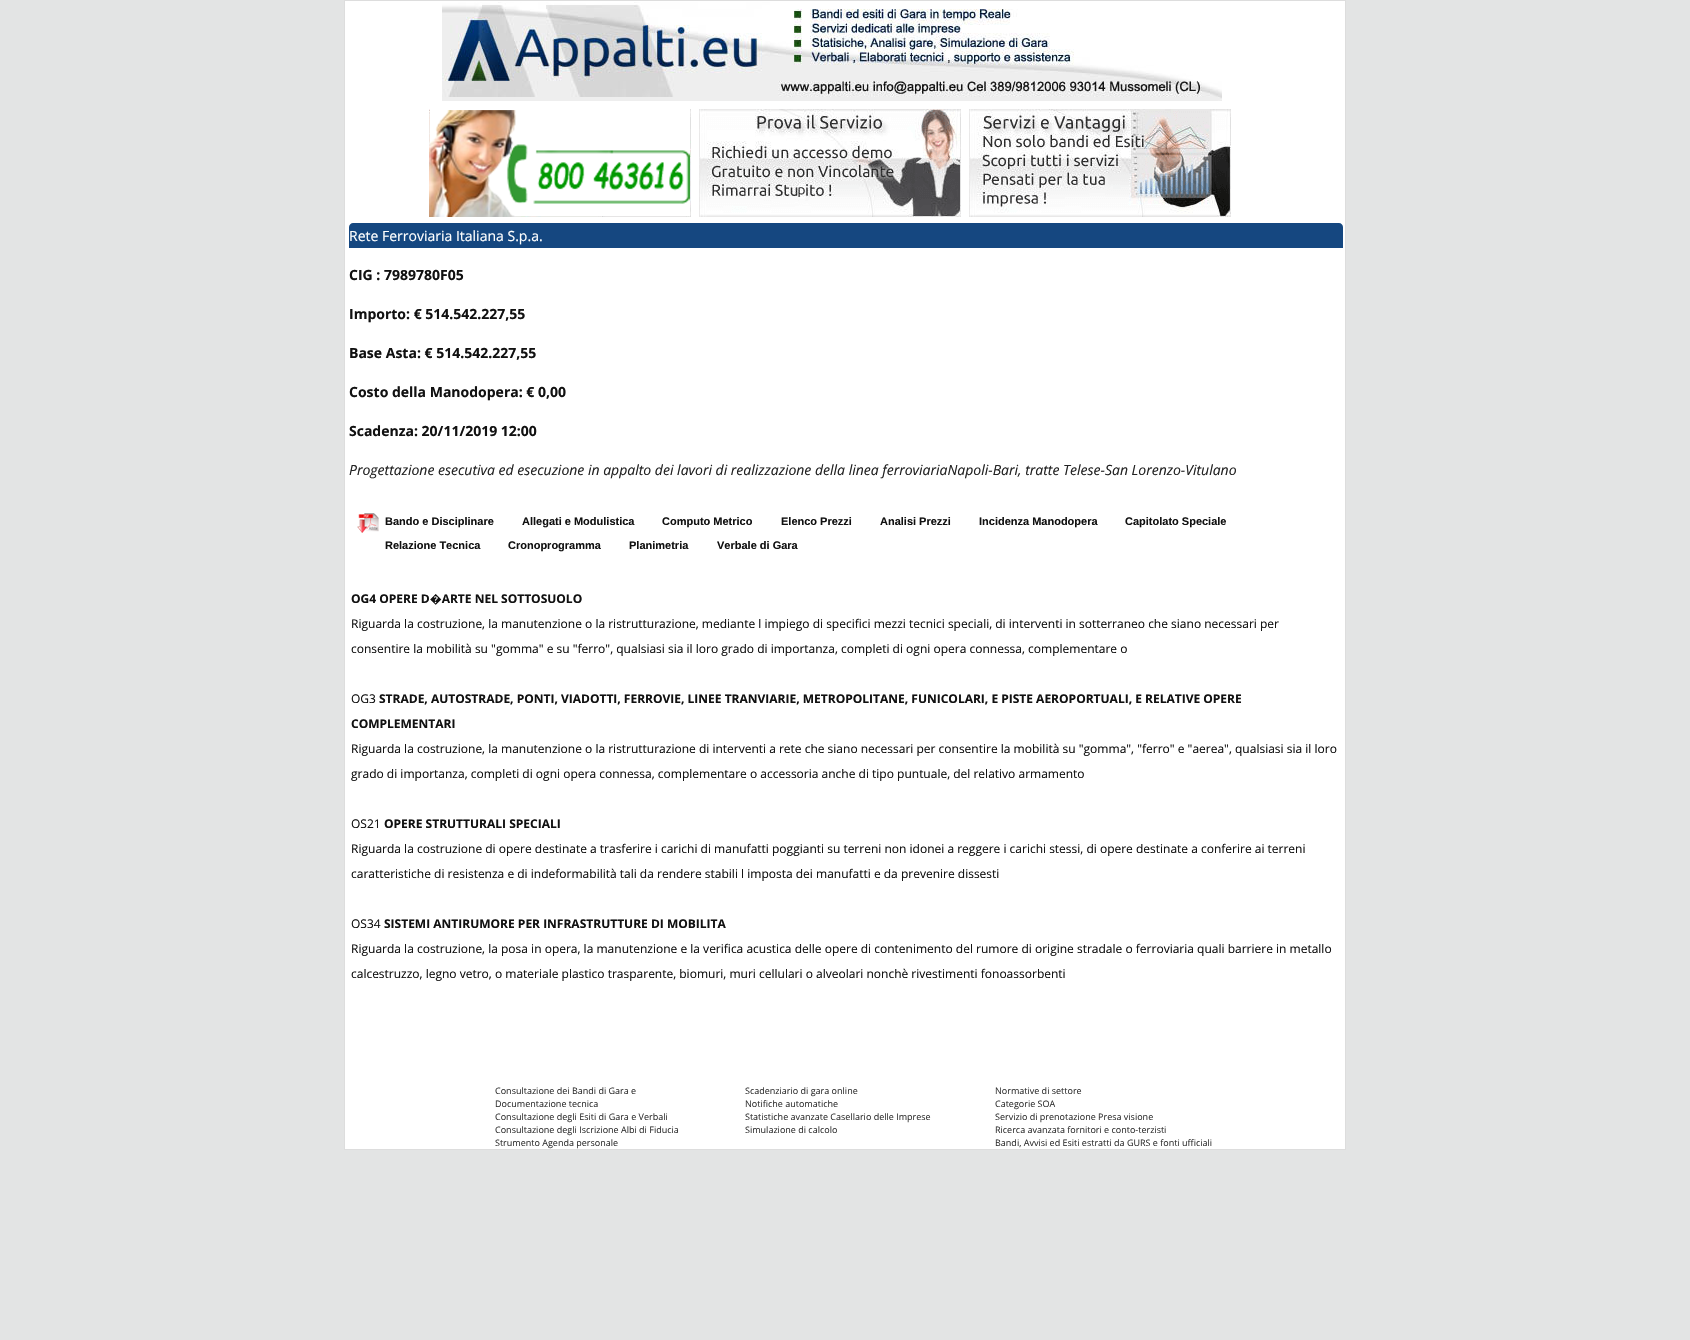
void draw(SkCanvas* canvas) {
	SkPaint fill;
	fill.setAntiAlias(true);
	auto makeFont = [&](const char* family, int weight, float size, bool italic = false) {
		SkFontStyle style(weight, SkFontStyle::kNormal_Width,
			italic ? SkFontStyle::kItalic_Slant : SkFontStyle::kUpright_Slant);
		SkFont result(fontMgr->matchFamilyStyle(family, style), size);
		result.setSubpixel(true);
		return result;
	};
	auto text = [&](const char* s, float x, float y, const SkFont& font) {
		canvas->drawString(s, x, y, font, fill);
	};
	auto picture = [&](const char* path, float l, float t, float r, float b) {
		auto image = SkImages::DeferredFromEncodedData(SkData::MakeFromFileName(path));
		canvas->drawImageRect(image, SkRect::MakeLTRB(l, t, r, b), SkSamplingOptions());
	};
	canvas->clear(0xFFE3E4E4);
	fill.setColor(0xFFFFFFFF);
	canvas->drawRect(SkRect::MakeLTRB(344.5f, 0.5f, 1345.5f, 1149.5f), fill);
	fill.setStyle(SkPaint::kStroke_Style);
	fill.setStrokeWidth(1);
	fill.setColor(0xFFDDDDDD);
	canvas->drawRect(SkRect::MakeLTRB(344.5f, 0.5f, 1345.5f, 1149.5f), fill);
	picture("image0.png", 442, 2, 1222, 101);
	picture("image1.png", 429, 109, 691, 217);
	picture("image2.png", 699, 109, 961, 217);
	picture("image3.png", 969, 109, 1231, 217);
	fill.setStyle(SkPaint::kFill_Style);
	fill.setColor(0xFF154780);
	canvas->drawPath(SkPathBuilder().moveTo(353, 223).lineTo(1339, 223).cubicTo(1341, 223, 1343, 225, 1343, 227).lineTo(1343, 248).lineTo(349, 248).lineTo(349, 227).cubicTo(349, 225, 351, 223, 353, 223).close().detach(), fill);
	picture("image4.png", 357, 513, 379, 533);
	auto font1 = makeFont("Open Sans", 400, 14);
	fill.setColor(0xFFFFFFFF);
	text("Rete Ferroviaria Italiana S.p.a.", 349, 241, font1);
	auto font2 = makeFont("Open Sans", 700, 14);
	fill.setColor(0xFF111111);
	text("CIG : 7989780F05", 349, 280, font2);
	text("Importo: € 514.542.227,55", 349, 319, font2);
	text("Base Asta: € 514.542.227,55", 349, 358, font2);
	text("Costo della Manodopera: € 0,00", 349, 397, font2);
	text("Scadenza: 20/11/2019 12:00", 349, 436, font2);
	auto font3 = makeFont("Open Sans", 400, 14, true);
	fill.setColor(0xFF222222);
	text("Progettazione esecutiva ed esecuzione in appalto dei lavori di realizzazione della linea ferroviariaNapoli-Bari, tratte Telese-San Lorenzo-Vitulano", 349, 475, font3);
	auto font4 = makeFont("Liberation Sans", 700, 11);
	fill.setColor(0xFF111111);
	text("Bando e Disciplinare", 385, 525, font4);
	text("Allegati e Modulistica", 522, 525, font4);
	text("Computo Metrico", 662, 525, font4);
	text("Elenco Prezzi", 781, 525, font4);
	text("Analisi Prezzi", 880, 525, font4);
	text("Incidenza Manodopera", 979, 525, font4);
	text("Capitolato Speciale", 1125, 525, font4);
	text("Relazione Tecnica", 385, 549, font4);
	text("Cronoprogramma", 508, 549, font4);
	text("Planimetria", 629, 549, font4);
	text("Verbale di Gara", 717, 549, font4);
	auto font5 = makeFont("Open Sans", 700, 12);
	text("OG4 OPERE D�ARTE NEL SOTTOSUOLO", 351, 603, font5);
	auto font6 = makeFont("Open Sans", 400, 12);
	text("Riguarda la costruzione, la manutenzione o la ristrutturazione, mediante l impiego di specifici mezzi tecnici speciali, di interventi in sotterraneo che siano necessari per", 351, 628, font6);
	text("consentire la mobilità su \"gomma\" e su \"ferro\", qualsiasi sia il loro grado di importanza, completi di ogni opera connessa, complementare o", 351, 653, font6);
	text("OG3", 351, 703, font6);
	text("STRADE, AUTOSTRADE, PONTI, VIADOTTI, FERROVIE, LINEE TRANVIARIE, METROPOLITANE, FUNICOLARI, E PISTE AEROPORTUALI, E RELATIVE OPERE", 379, 703, font5);
	text("COMPLEMENTARI", 351, 728, font5);
	text("Riguarda la costruzione, la manutenzione o la ristrutturazione di interventi a rete che siano necessari per consentire la mobilità su \"gomma\", \"ferro\" e \"aerea\", qualsiasi sia il loro", 351, 753, font6);
	text("grado di importanza, completi di ogni opera connessa, complementare o accessoria anche di tipo puntuale, del relativo armamento", 351, 778, font6);
	text("OS21", 351, 828, font6);
	text("OPERE STRUTTURALI SPECIALI", 384, 828, font5);
	text("Riguarda la costruzione di opere destinate a trasferire i carichi di manufatti poggianti su terreni non idonei a reggere i carichi stessi, di opere destinate a conferire ai terreni", 351, 853, font6);
	text("caratteristiche di resistenza e di indeformabilità tali da rendere stabili l imposta dei manufatti e da prevenire dissesti", 351, 878, font6);
	text("OS34", 351, 928, font6);
	text("SISTEMI ANTIRUMORE PER INFRASTRUTTURE DI MOBILITA", 384, 928, font5);
	text("Riguarda la costruzione, la posa in opera, la manutenzione e la verifica acustica delle opere di contenimento del rumore di origine stradale o ferroviaria quali barriere in metallo", 351, 953, font6);
	text("calcestruzzo, legno vetro, o materiale plastico trasparente, biomuri, muri cellulari o alveolari nonchè rivestimenti fonoassorbenti", 351, 978, font6);
	auto font7 = makeFont("Open Sans", 400, 9);
	fill.setColor(0xFF333333);
	text("Consultazione dei Bandi di Gara e", 495, 1094, font7);
	text("Documentazione tecnica", 495, 1107, font7);
	text("Consultazione degli Esiti di Gara e Verbali", 495, 1120, font7);
	text("Consultazione degli Iscrizione Albi di Fiducia", 495, 1133, font7);
	text("Strumento Agenda personale", 495, 1146, font7);
	text("Scadenziario di gara online", 745, 1094, font7);
	text("Notifiche automatiche", 745, 1107, font7);
	text("Statistiche avanzate Casellario delle Imprese", 745, 1120, font7);
	text("Simulazione di calcolo", 745, 1133, font7);
	text("Normative di settore", 995, 1094, font7);
	text("Categorie SOA", 995, 1107, font7);
	text("Servizio di prenotazione Presa visione", 995, 1120, font7);
	text("Ricerca avanzata fornitori e conto-terzisti", 995, 1133, font7);
	text("Bandi, Avvisi ed Esiti estratti da GURS e fonti ufficiali", 995, 1146, font7);
}
